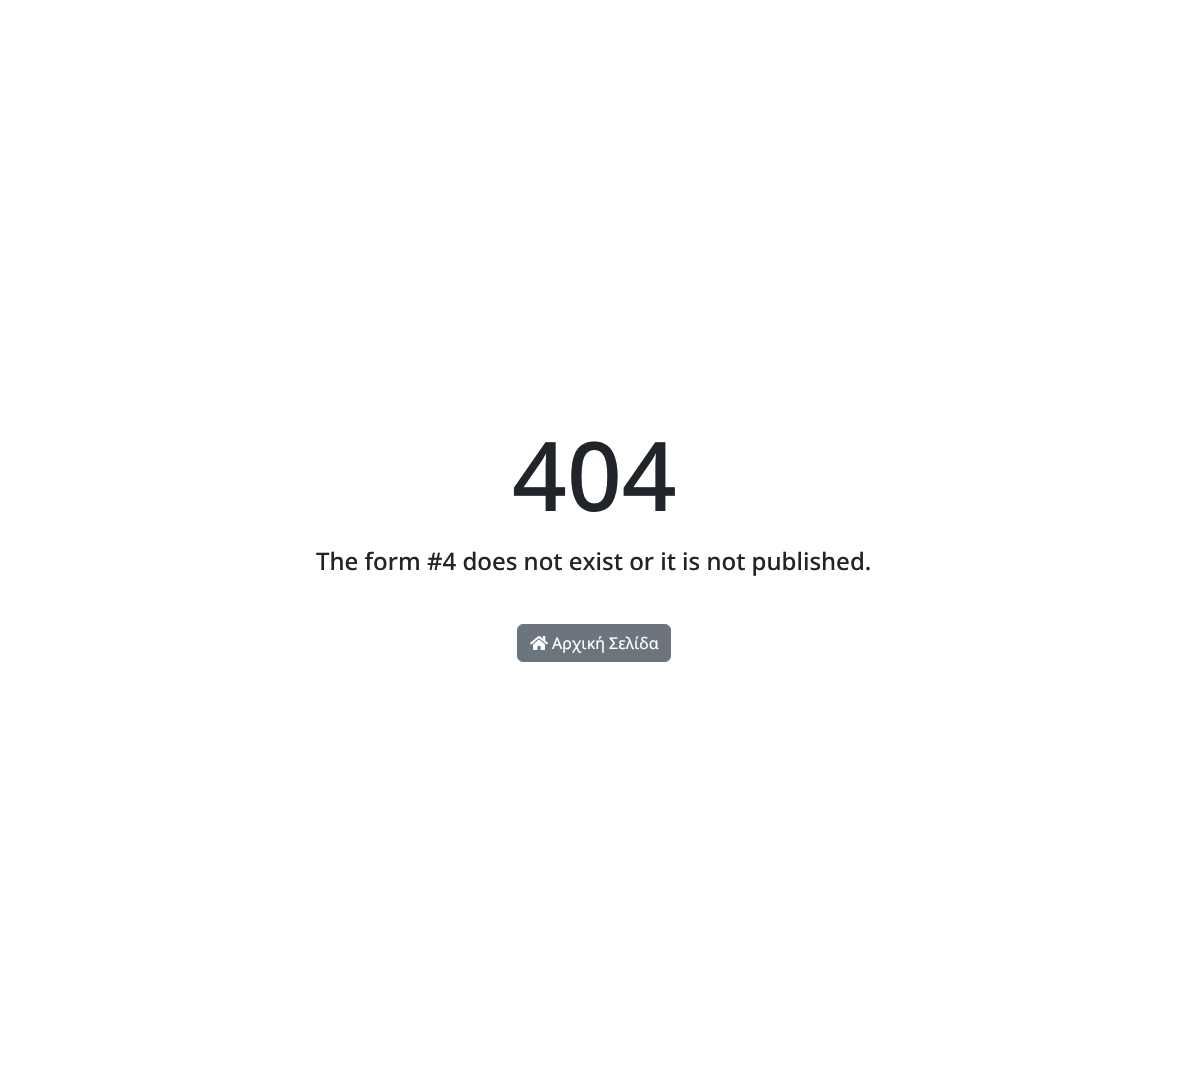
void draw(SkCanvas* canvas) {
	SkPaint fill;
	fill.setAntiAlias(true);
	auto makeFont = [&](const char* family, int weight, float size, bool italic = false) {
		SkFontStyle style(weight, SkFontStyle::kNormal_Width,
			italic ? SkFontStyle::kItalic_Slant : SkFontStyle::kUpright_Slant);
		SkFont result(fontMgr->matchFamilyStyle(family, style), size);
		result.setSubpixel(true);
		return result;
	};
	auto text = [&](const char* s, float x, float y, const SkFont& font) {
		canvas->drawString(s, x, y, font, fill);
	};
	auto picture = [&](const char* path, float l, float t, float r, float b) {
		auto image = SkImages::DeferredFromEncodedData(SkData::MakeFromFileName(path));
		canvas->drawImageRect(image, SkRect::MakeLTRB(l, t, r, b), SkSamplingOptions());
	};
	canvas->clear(0xFFFFFFFF);
	fill.setColor(0xFF6C757D);
	canvas->drawRoundRect(SkRect::MakeLTRB(517.5f, 624.5f, 670.5f, 661.5f), 5.5f, 5.5f, fill);
	fill.setStyle(SkPaint::kStroke_Style);
	fill.setStrokeWidth(1);
	canvas->drawRoundRect(SkRect::MakeLTRB(517.5f, 624.5f, 670.5f, 661.5f), 5.5f, 5.5f, fill);
	picture("image0.png", 530, 636, 548, 650);
	auto font1 = makeFont("Noto Sans", 500, 96);
	fill.setStyle(SkPaint::kFill_Style);
	fill.setColor(0xFF212529);
	text("404", 512, 511, font1);
	auto font2 = makeFont("Noto Sans", 500, 24);
	text("The form #4 does not exist or it is not published.", 316, 570, font2);
	auto font3 = makeFont("Noto Sans", 400, 16);
	fill.setColor(0xFFFFFFFF);
	text("Αρχική Σελίδα", 552, 649, font3);
}
